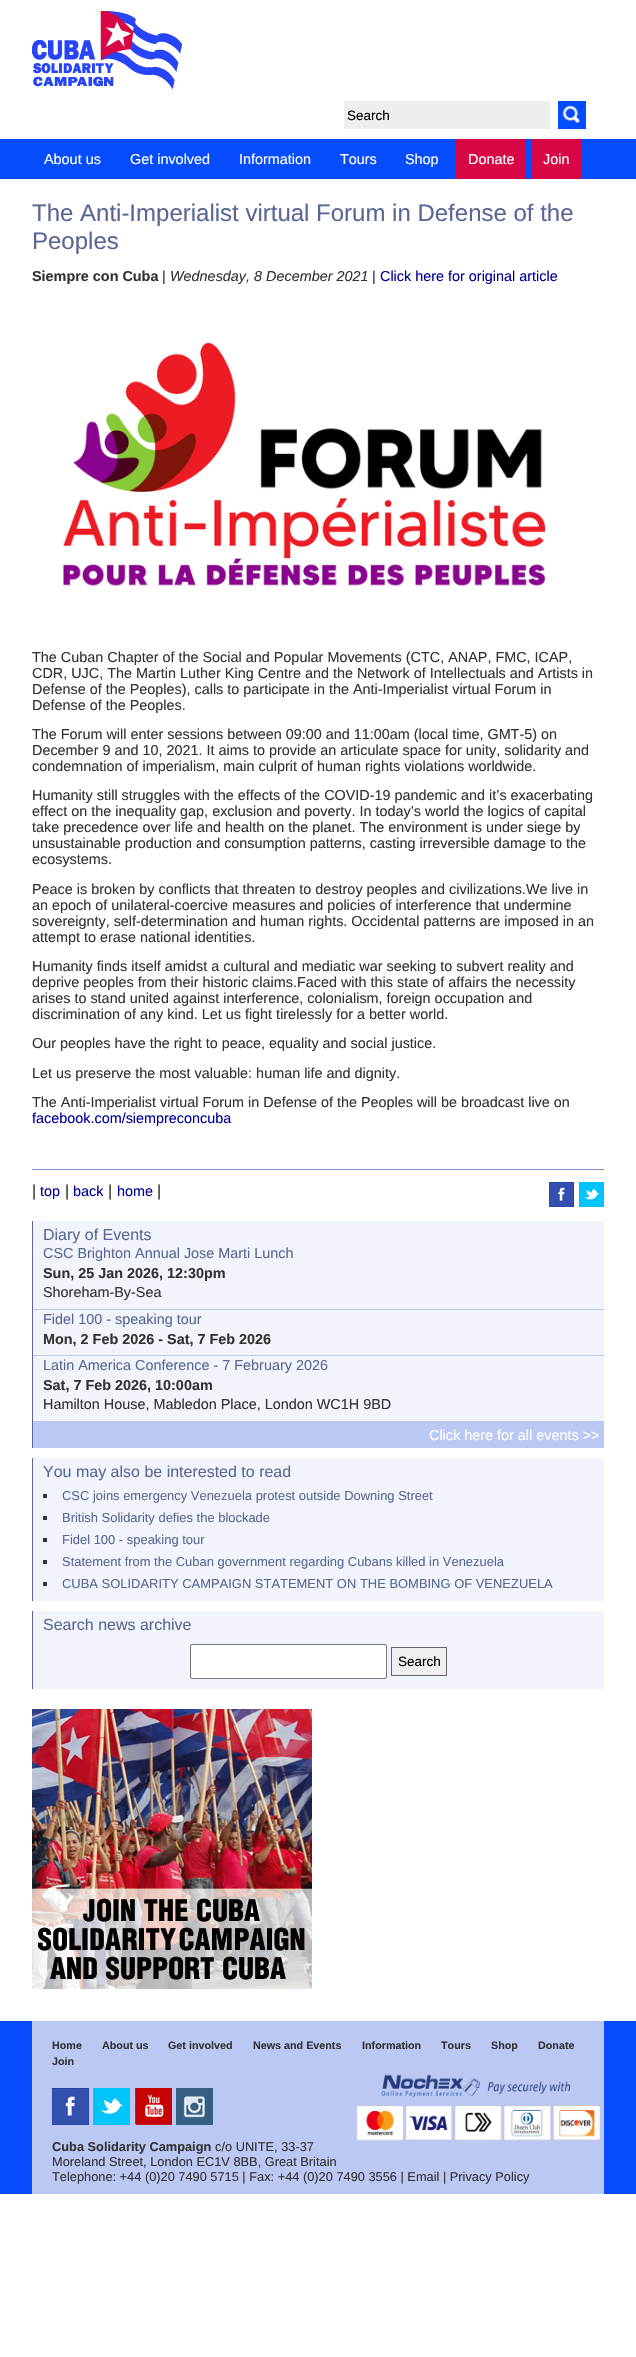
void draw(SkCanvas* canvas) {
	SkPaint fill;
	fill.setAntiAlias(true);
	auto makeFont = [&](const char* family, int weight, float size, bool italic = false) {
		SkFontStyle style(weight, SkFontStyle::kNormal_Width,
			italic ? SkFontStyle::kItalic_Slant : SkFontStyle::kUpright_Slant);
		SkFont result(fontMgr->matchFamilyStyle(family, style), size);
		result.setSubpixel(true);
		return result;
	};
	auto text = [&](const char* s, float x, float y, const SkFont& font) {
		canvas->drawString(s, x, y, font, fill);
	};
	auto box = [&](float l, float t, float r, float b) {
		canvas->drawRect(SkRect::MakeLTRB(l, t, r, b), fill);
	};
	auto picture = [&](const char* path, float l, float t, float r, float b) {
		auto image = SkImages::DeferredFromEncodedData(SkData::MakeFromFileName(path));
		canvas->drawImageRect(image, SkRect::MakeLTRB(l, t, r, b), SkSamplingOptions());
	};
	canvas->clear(0xFFFFFFFF);
	picture("image0.png", 32, 11, 182, 89);
	fill.setColor(0xFFEEEEEE);
	box(344, 101, 550, 129);
	fill.setColor(0xFF054BFF);
	box(558, 101, 586, 129);
	picture("image1.png", 562, 105, 580, 123);
	box(0, 139, 636, 179);
	fill.setColor(0xFFD80644);
	box(456, 139, 526, 179);
	box(531, 139, 582, 179);
	picture("image2.png", 61, 342, 546, 587);
	fill.setColor(0xFF8193D5);
	box(32, 1169, 604, 1170);
	picture("image3.png", 549, 1182, 574, 1207);
	picture("image4.png", 579, 1182, 604, 1207);
	fill.setColor(0xFFF2F4FB);
	box(33, 1221, 604, 1421);
	fill.setColor(0xFF5A6795);
	box(32, 1221, 33, 1448);
	fill.setColor(0xFFBCC8F4);
	box(33, 1309, 604, 1310);
	box(33, 1355, 604, 1356);
	box(33, 1421, 604, 1448);
	fill.setColor(0xFFF2F4FB);
	box(33, 1458, 604, 1601);
	fill.setColor(0xFF5A6795);
	box(32, 1458, 33, 1601);
	fill.setColor(0xFF333333);
	box(43, 1494, 47, 1498);
	box(43, 1516, 47, 1520);
	box(43, 1538, 47, 1542);
	box(43, 1560, 47, 1564);
	box(43, 1582, 47, 1586);
	fill.setColor(0xFFF2F4FB);
	box(33, 1611, 604, 1689);
	fill.setColor(0xFF5A6795);
	box(32, 1611, 33, 1689);
	fill.setColor(0xFFFFFFFF);
	canvas->drawRoundRect(SkRect::MakeLTRB(190.5f, 1644.5f, 386.5f, 1678.5f), 1.5f, 1.5f, fill);
	fill.setStyle(SkPaint::kStroke_Style);
	fill.setStrokeWidth(1);
	fill.setColor(0xFF767676);
	canvas->drawRoundRect(SkRect::MakeLTRB(190.5f, 1644.5f, 386.5f, 1678.5f), 1.5f, 1.5f, fill);
	fill.setStyle(SkPaint::kFill_Style);
	fill.setColor(0xFFEFEFEF);
	canvas->drawRect(SkRect::MakeLTRB(391.5f, 1647.5f, 446.5f, 1675.5f), fill);
	fill.setStyle(SkPaint::kStroke_Style);
	fill.setColor(0xFF666666);
	canvas->drawRect(SkRect::MakeLTRB(391.5f, 1647.5f, 446.5f, 1675.5f), fill);
	picture("image5.png", 32, 1709, 312, 1989);
	fill.setStyle(SkPaint::kFill_Style);
	fill.setColor(0xFF054BFF);
	box(0, 2021, 636, 2194);
	fill.setColor(0xFFBCC8F4);
	box(32, 2021, 604, 2194);
	picture("image6.png", 52, 2088, 89, 2125);
	picture("image7.png", 93, 2088, 130, 2125);
	picture("image8.png", 135, 2088, 172, 2125);
	picture("image9.png", 176, 2088, 213, 2125);
	picture("image10.png", 356, 2074, 601, 2141);
	auto font1 = makeFont("Liberation Sans", 400, 13.5f);
	fill.setColor(0xFF000000);
	text("Search", 347, 120, font1);
	auto font2 = makeFont("Liberation Sans", 400, 14.4f);
	fill.setColor(0xFFFFFFFF);
	text("About us", 44, 164, font2);
	text("Get involved", 130, 164, font2);
	text("Information", 239, 164, font2);
	text("Tours", 340, 164, font2);
	text("Shop", 405, 164, font2);
	text("Donate", 468, 164, font2);
	text("Join", 543, 164, font2);
	auto font3 = makeFont("Liberation Sans", 400, 24);
	fill.setColor(0xFF5A6795);
	text("The Anti-Imperialist virtual Forum in Defense of the", 32, 221, font3);
	text("Peoples", 32, 249, font3);
	auto font4 = makeFont("Liberation Sans", 700, 14.4f);
	fill.setColor(0xFF333333);
	text("Siempre con Cuba", 32, 281, font4);
	text("|", 162, 281, font2);
	auto font5 = makeFont("Liberation Sans", 400, 14.4f, true);
	text("Wednesday, 8 December 2021", 170, 281, font5);
	text("|", 372, 281, font2);
	fill.setColor(0xFF000099);
	text("Click here for original article", 380, 281, font2);
	fill.setColor(0xFF333333);
	text("The Cuban Chapter of the Social and Popular Movements (CTC, ANAP, FMC, ICAP,", 32, 662, font2);
	text("CDR, UJC, The Martin Luther King Centre and the Network of Intellectuals and Artists in", 32, 678, font2);
	text("Defense of the Peoples), calls to participate in the Anti-Imperialist virtual Forum in", 32, 694, font2);
	text("Defense of the Peoples.", 32, 710, font2);
	text("The Forum will enter sessions between 09:00 and 11:00am (local time, GMT-5) on", 32, 739, font2);
	text("December 9 and 10, 2021. It aims to provide an articulate space for unity, solidarity and", 32, 755, font2);
	text("condemnation of imperialism, main culprit of human rights violations worldwide.", 32, 771, font2);
	text("Humanity still struggles with the effects of the COVID-19 pandemic and it’s exacerbating", 32, 800, font2);
	text("effect on the inequality gap, exclusion and poverty. In today’s world the logics of capital", 32, 816, font2);
	text("take precedence over life and health on the planet. The environment is under siege by", 32, 832, font2);
	text("unsustainable production and consumption patterns, casting irreversible damage to the", 32, 848, font2);
	text("ecosystems.", 32, 864, font2);
	text("Peace is broken by conflicts that threaten to destroy peoples and civilizations.We live in", 32, 894, font2);
	text("an epoch of unilateral-coercive measures and policies of interference that undermine", 32, 910, font2);
	text("sovereignty, self-determination and human rights. Occidental patterns are imposed in an", 32, 926, font2);
	text("attempt to erase national identities.", 32, 942, font2);
	text("Humanity finds itself amidst a cultural and mediatic war seeking to subvert reality and", 32, 971, font2);
	text("deprive peoples from their historic claims.Faced with this state of affairs the necessity", 32, 987, font2);
	text("arises to stand united against interference, colonialism, foreign occupation and", 32, 1003, font2);
	text("discrimination of any kind. Let us fight tirelessly for a better world.", 32, 1019, font2);
	text("Our peoples have the right to peace, equality and social justice.", 32, 1048, font2);
	text("Let us preserve the most valuable: human life and dignity.", 32, 1078, font2);
	text("The Anti-Imperialist virtual Forum in Defense of the Peoples will be broadcast live on", 32, 1107, font2);
	fill.setColor(0xFF000099);
	text("facebook.com/siempreconcuba", 32, 1123, font2);
	auto font6 = makeFont("Liberation Sans", 400, 16);
	fill.setColor(0xFF333333);
	text("|", 32, 1196, font6);
	fill.setColor(0xFF000099);
	text("top", 40, 1196, font2);
	fill.setColor(0xFF333333);
	text("|", 65, 1196, font6);
	fill.setColor(0xFF000099);
	text("back", 73, 1196, font2);
	fill.setColor(0xFF333333);
	text("|", 108, 1196, font6);
	fill.setColor(0xFF000099);
	text("home", 117, 1196, font2);
	fill.setColor(0xFF333333);
	text("|", 157, 1196, font6);
	fill.setColor(0xFF5A6795);
	text("Diary of Events", 43, 1240, font6);
	text("CSC Brighton Annual Jose Marti Lunch", 43, 1258, font2);
	fill.setColor(0xFF333333);
	text("Sun, 25 Jan 2026, 12:30pm", 43, 1278, font4);
	text("Shoreham-By-Sea", 43, 1297, font2);
	fill.setColor(0xFF5A6795);
	text("Fidel 100 - speaking tour", 43, 1324, font2);
	fill.setColor(0xFF333333);
	text("Mon, 2 Feb 2026 - Sat, 7 Feb 2026", 43, 1344, font4);
	fill.setColor(0xFF5A6795);
	text("Latin America Conference - 7 February 2026", 43, 1370, font2);
	fill.setColor(0xFF333333);
	text("Sat, 7 Feb 2026, 10:00am", 43, 1390, font4);
	text("Hamilton House, Mabledon Place, London WC1H 9BD", 43, 1409, font2);
	fill.setColor(0xFFFFFFFF);
	text("Click here for all events >>", 429, 1440, font2);
	fill.setColor(0xFF5A6795);
	text("You may also be interested to read", 43, 1477, font6);
	auto font7 = makeFont("Liberation Sans", 400, 12.95f);
	text("CSC joins emergency Venezuela protest outside Downing Street", 62, 1500, font7);
	text("British Solidarity defies the blockade", 62, 1522, font7);
	text("Fidel 100 - speaking tour", 62, 1544, font7);
	text("Statement from the Cuban government regarding Cubans killed in Venezuela", 62, 1566, font7);
	text("CUBA SOLIDARITY CAMPAIGN STATEMENT ON THE BOMBING OF VENEZUELA", 62, 1588, font7);
	text("Search news archive", 43, 1630, font6);
	fill.setColor(0xFF000000);
	text("Search", 398, 1666, font1);
	auto font8 = makeFont("Liberation Sans", 700, 10.75f);
	fill.setColor(0xFF333333);
	text("Home", 52, 2049, font8);
	text("About us", 102, 2049, font8);
	text("Get involved", 168, 2049, font8);
	text("News and Events", 253, 2049, font8);
	text("Information", 362, 2049, font8);
	text("Tours", 441, 2049, font8);
	text("Shop", 491, 2049, font8);
	text("Donate", 538, 2049, font8);
	text("Join", 52, 2065, font8);
	auto font9 = makeFont("Liberation Sans", 700, 12.8f);
	text("Cuba Solidarity Campaign", 52, 2151, font9);
	auto font10 = makeFont("Liberation Sans", 400, 12.8f);
	text("c/o UNITE, 33-37", 215, 2151, font10);
	text("Moreland Street, London EC1V 8BB, Great Britain", 52, 2166, font10);
	text("Telephone: +44 (0)20 7490 5715 | Fax: +44 (0)20 7490 3556 | Email | Privacy Policy", 52, 2181, font10);
}
